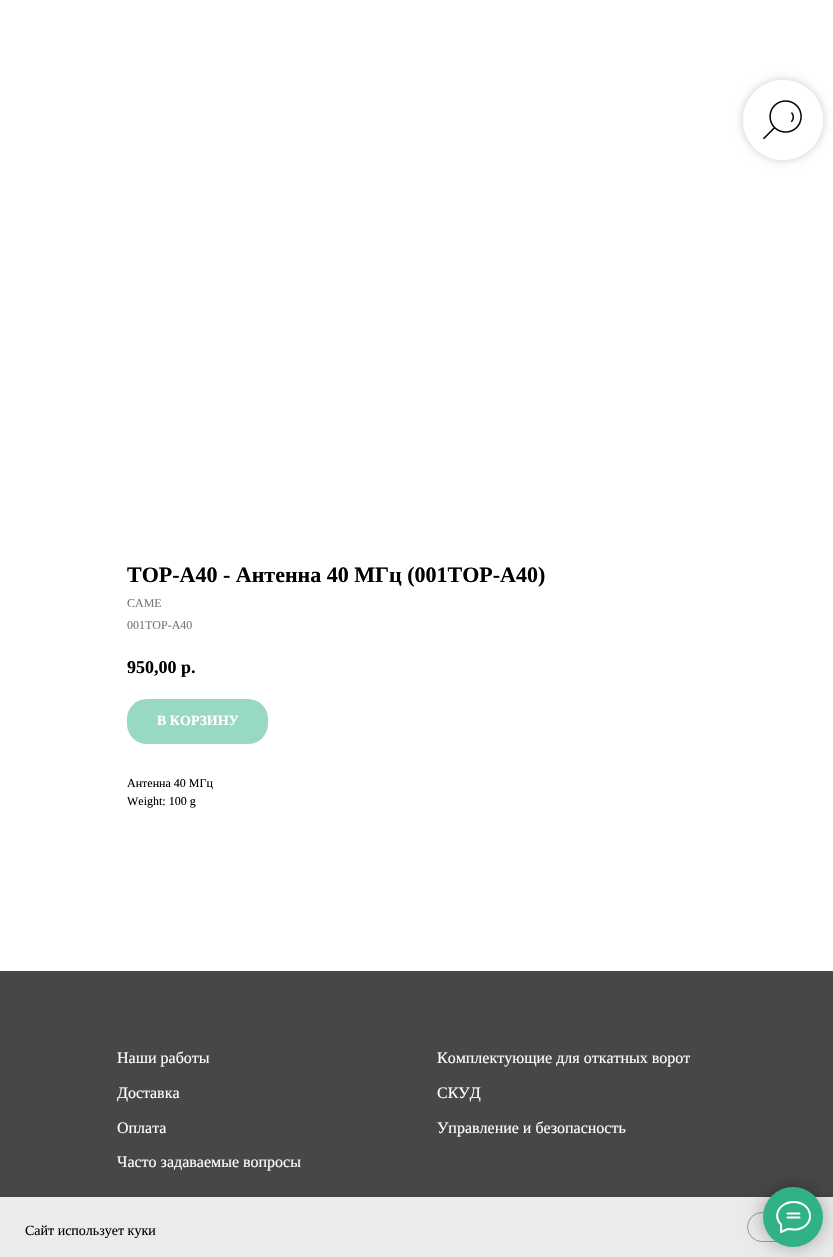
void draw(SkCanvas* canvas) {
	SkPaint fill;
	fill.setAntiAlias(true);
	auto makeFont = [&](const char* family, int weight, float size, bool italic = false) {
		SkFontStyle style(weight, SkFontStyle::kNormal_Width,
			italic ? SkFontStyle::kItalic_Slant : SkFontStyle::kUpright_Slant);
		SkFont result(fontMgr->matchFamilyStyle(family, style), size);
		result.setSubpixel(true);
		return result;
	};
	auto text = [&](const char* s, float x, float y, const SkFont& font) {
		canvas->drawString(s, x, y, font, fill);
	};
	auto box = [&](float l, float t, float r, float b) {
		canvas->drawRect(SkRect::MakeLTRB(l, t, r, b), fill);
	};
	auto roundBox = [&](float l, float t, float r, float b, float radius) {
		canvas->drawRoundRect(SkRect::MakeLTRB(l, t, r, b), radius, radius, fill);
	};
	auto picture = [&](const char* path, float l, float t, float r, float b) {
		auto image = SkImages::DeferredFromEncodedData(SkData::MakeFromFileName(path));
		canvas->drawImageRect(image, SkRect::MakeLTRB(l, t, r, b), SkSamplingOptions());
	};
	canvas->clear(0xFFFFFFFF);
	canvas->save();
	canvas->clipPath(SkPathBuilder(SkPathFillType::kEvenOdd).moveTo(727, 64).lineTo(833, 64).lineTo(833, 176).lineTo(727, 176).close().moveTo(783, 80).cubicTo(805, 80, 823, 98, 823, 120).cubicTo(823, 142, 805, 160, 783, 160).cubicTo(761, 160, 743, 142, 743, 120).cubicTo(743, 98, 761, 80, 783, 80).close().detach(), true);
	fill.setColor(0x33000000);
	fill.setMaskFilter(SkMaskFilter::MakeBlur(kNormal_SkBlurStyle, 5));
	canvas->drawRoundRect(SkRect::MakeLTRB(743, 80, 823, 160), 40, 40, fill);
	fill.setMaskFilter(nullptr);
	canvas->restore();
	fill.setColor(0xCCFFFFFF);
	canvas->drawCircle(783, 120, 40, fill);
	picture("image0.png", 763, 100, 802, 140);
	fill.setColor(0xFF98D9C3);
	roundBox(127, 699, 268, 744, 20);
	fill.setColor(0xFF474747);
	box(0, 971, 833, 1197);
	fill.setColor(0x1A000000);
	fill.setMaskFilter(SkMaskFilter::MakeBlur(kNormal_SkBlurStyle, 2.5f));
	canvas->drawRect(SkRect::MakeLTRB(0, 1197, 833, 1257), fill);
	fill.setMaskFilter(nullptr);
	fill.setColor(0xFFEBEBEB);
	box(0, 1197, 833, 1257);
	fill.setStyle(SkPaint::kStroke_Style);
	fill.setStrokeWidth(1);
	fill.setColor(0xFF999999);
	canvas->drawRoundRect(SkRect::MakeLTRB(747.5f, 1212.5f, 807.5f, 1241.5f), 14.5f, 14.5f, fill);
	fill.setStyle(SkPaint::kFill_Style);
	fill.setColor(0x4D000000);
	fill.setMaskFilter(SkMaskFilter::MakeBlur(kNormal_SkBlurStyle, 10));
	canvas->drawRoundRect(SkRect::MakeLTRB(763, 1187, 823, 1247), 30, 30, fill);
	fill.setMaskFilter(nullptr);
	fill.setColor(0xFF30B286);
	canvas->drawCircle(793, 1217, 30, fill);
	fill.setStyle(SkPaint::kStroke_Style);
	fill.setStrokeWidth(2);
	fill.setStrokeCap(SkPaint::kRound_Cap);
	fill.setStrokeJoin(SkPaint::kRound_Join);
	fill.setColor(0xFFFFFFFF);
	canvas->drawPath(SkPathBuilder().moveTo(787.5f, 1213.5f).lineTo(799.5f, 1213.5f).moveTo(787.5f, 1217.5f).lineTo(799.5f, 1217.5f).moveTo(781, 1224.5f).cubicTo(775.5f, 1219, 776, 1211, 782, 1206).cubicTo(785, 1203.5f, 789.5f, 1202, 793.5f, 1202).cubicTo(813, 1202, 816.5f, 1226, 797, 1229.5f).cubicTo(793, 1230, 791.5f, 1229, 788, 1229).lineTo(781, 1232).lineTo(781, 1225).close().detach(), fill);
	auto font1 = makeFont("Liberation Serif", 700, 22);
	fill.setStyle(SkPaint::kFill_Style);
	fill.setColor(0xFF000000);
	text("TOP-A40 - Антенна 40 МГц (001TOP-A40)", 127, 582, font1);
	auto font2 = makeFont("Liberation Serif", 400, 12);
	fill.setColor(0xFF777777);
	text("САМЕ", 127, 607, font2);
	text("001TOP-A40", 127, 629, font2);
	auto font3 = makeFont("Liberation Serif", 700, 18);
	fill.setColor(0xFF000000);
	text("950,00", 127, 673, font3);
	text("р.", 181, 673, font3);
	auto font4 = makeFont("Liberation Serif", 700, 14);
	fill.setColor(0xFFFFFFFF);
	text("В КОРЗИНУ", 157, 725, font4);
	fill.setColor(0xFF000000);
	text("Антенна 40 МГц", 127, 787, font2);
	text("Weight: 100 g", 127, 805, font2);
	auto font5 = makeFont("Liberation Serif", 400, 16);
	fill.setColor(0xFFFFFFFF);
	text("Наши работы", 117, 1063, font5);
	text("Доставка", 117, 1098, font5);
	text("Оплата", 117, 1133, font5);
	text("Часто задаваемые вопросы", 117, 1167, font5);
	text("Комплектующие для откатных ворот", 437, 1063, font5);
	text("СКУД", 437, 1098, font5);
	text("Управление и безопасность", 437, 1133, font5);
	auto font6 = makeFont("Liberation Serif", 400, 14);
	fill.setColor(0xFF000000);
	text("Сайт использует куки", 25, 1235, font6);
}
